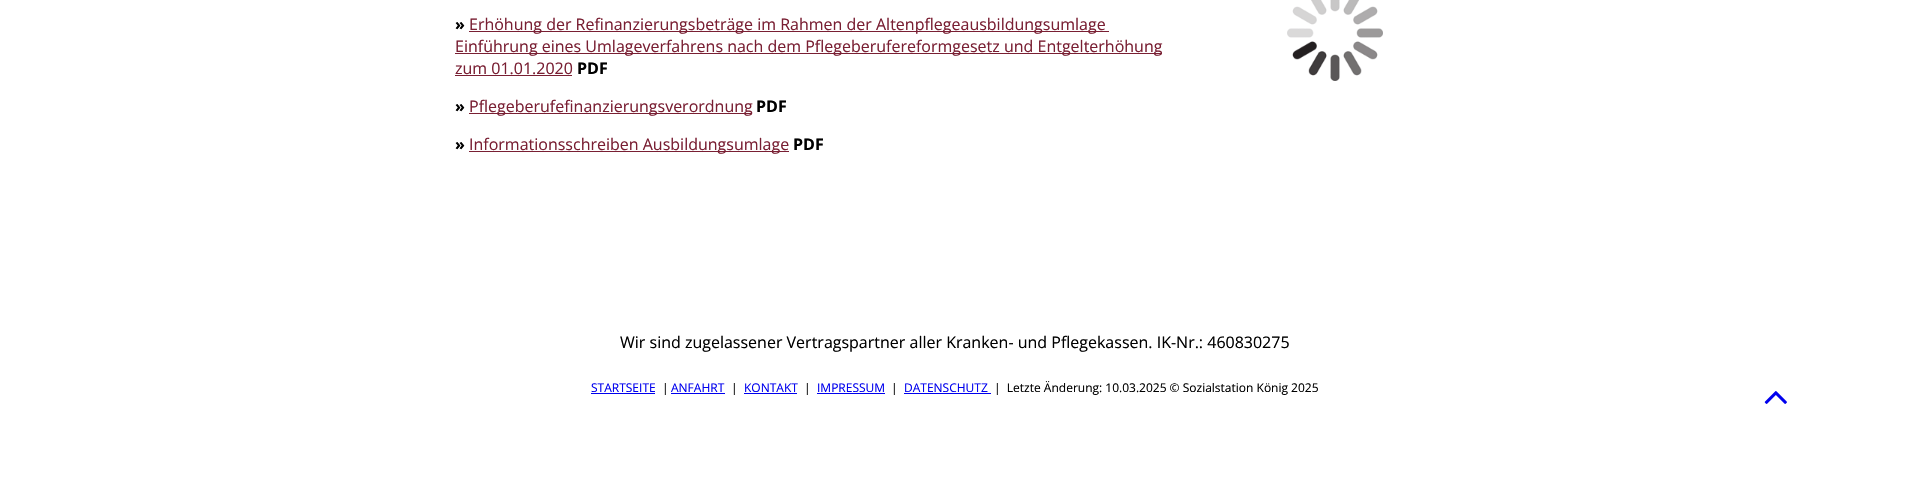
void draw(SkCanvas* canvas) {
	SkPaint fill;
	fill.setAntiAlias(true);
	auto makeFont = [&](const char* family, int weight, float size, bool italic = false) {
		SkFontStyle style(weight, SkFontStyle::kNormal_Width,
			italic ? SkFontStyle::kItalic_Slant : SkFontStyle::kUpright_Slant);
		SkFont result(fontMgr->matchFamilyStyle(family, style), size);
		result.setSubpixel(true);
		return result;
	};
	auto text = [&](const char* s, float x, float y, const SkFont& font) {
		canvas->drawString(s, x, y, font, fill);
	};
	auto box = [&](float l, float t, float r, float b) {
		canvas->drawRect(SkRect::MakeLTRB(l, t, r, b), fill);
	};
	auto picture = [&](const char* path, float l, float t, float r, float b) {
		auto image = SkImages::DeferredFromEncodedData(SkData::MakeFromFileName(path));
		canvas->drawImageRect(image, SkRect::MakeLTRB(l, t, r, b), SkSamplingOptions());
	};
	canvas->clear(0xFFFFFFFF);
	fill.setColor(0xFF791F33);
	box(469, 31, 1109, 32);
	box(455, 53, 1162, 54);
	box(455, 75, 572, 76);
	box(469, 113, 752, 114);
	box(469, 151, 789, 152);
	picture("image0.png", 1287, 0, 1383, 81);
	fill.setColor(0xFF0000EE);
	box(591, 393, 655, 394);
	box(671, 393, 725, 394);
	box(744, 393, 797, 394);
	box(817, 393, 885, 394);
	box(904, 393, 991, 394);
	picture("image1.png", 1764, 391, 1787, 404);
	auto font1 = makeFont("Open Sans", 700, 16);
	fill.setColor(0xFF000000);
	text("»", 455, 30, font1);
	auto font2 = makeFont("Open Sans", 400, 16);
	fill.setColor(0xFF791F33);
	text("Erhöhung der Refinanzierungsbeträge im Rahmen der Altenpflegeausbildungsumlage", 469, 30, font2);
	text("Einführung eines Umlageverfahrens nach dem Pflegeberufereformgesetz und Entgelterhöhung", 455, 52, font2);
	text("zum 01.01.2020", 455, 74, font2);
	fill.setColor(0xFF000000);
	text("PDF", 577, 74, font1);
	text("»", 455, 112, font1);
	fill.setColor(0xFF791F33);
	text("Pflegeberufefinanzierungsverordnung", 469, 112, font2);
	fill.setColor(0xFF000000);
	text("PDF", 756, 112, font1);
	text("»", 455, 150, font1);
	fill.setColor(0xFF791F33);
	text("Informationsschreiben Ausbildungsumlage", 469, 150, font2);
	fill.setColor(0xFF000000);
	text("PDF", 793, 150, font1);
	text("Wir sind zugelassener Vertragspartner aller Kranken- und Pflegekassen. IK-Nr.: 460830275", 620, 348, font2);
	auto font3 = makeFont("Open Sans", 400, 12);
	fill.setColor(0xFF0000EE);
	text("STARTSEITE", 591, 392, font3);
	fill.setColor(0xFF000000);
	text("|", 662, 392, font3);
	fill.setColor(0xFF0000EE);
	text("ANFAHRT", 671, 392, font3);
	fill.setColor(0xFF000000);
	text("|", 731, 392, font3);
	fill.setColor(0xFF0000EE);
	text("KONTAKT", 744, 392, font3);
	fill.setColor(0xFF000000);
	text("|", 804, 392, font3);
	fill.setColor(0xFF0000EE);
	text("IMPRESSUM", 817, 392, font3);
	fill.setColor(0xFF000000);
	text("|", 891, 392, font3);
	fill.setColor(0xFF0000EE);
	text("DATENSCHUTZ", 904, 392, font3);
	fill.setColor(0xFF000000);
	text("|  Letzte Änderung: 10.03.2025 © Sozialstation König 2025", 994, 392, font3);
}
